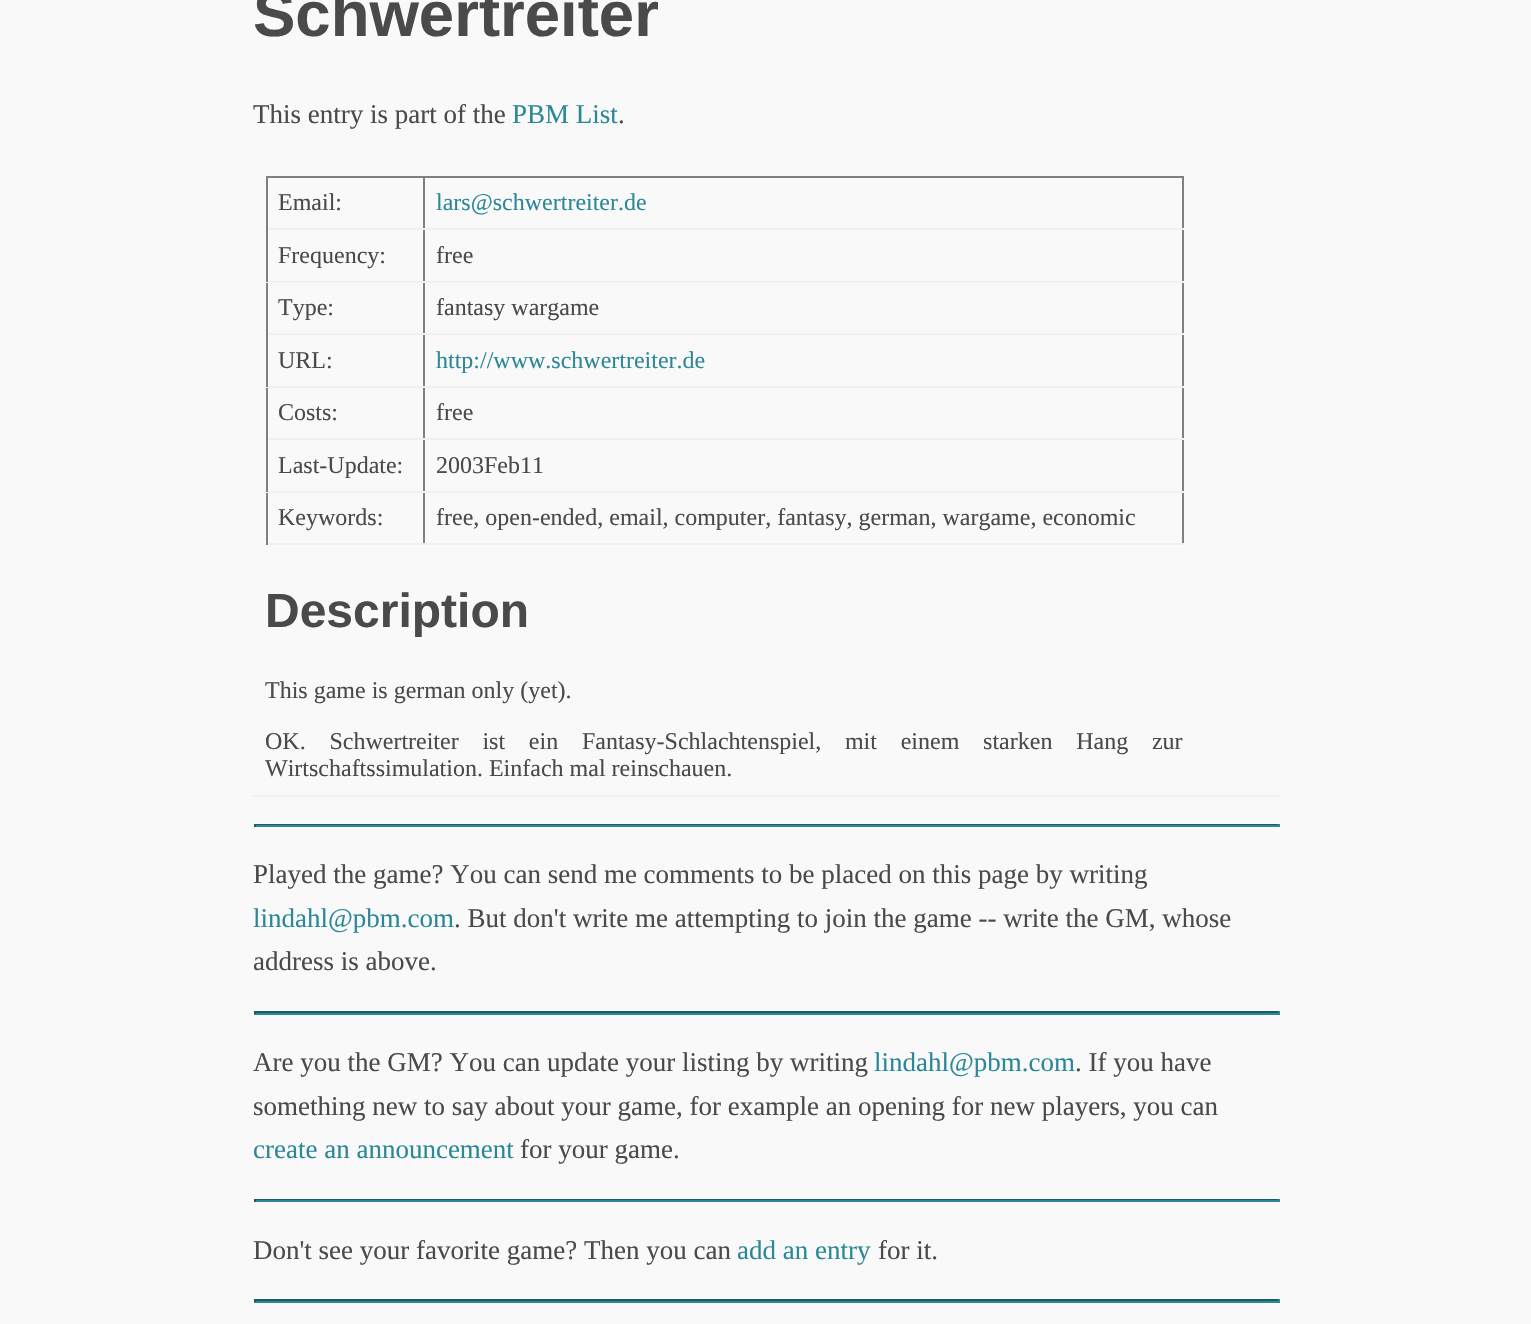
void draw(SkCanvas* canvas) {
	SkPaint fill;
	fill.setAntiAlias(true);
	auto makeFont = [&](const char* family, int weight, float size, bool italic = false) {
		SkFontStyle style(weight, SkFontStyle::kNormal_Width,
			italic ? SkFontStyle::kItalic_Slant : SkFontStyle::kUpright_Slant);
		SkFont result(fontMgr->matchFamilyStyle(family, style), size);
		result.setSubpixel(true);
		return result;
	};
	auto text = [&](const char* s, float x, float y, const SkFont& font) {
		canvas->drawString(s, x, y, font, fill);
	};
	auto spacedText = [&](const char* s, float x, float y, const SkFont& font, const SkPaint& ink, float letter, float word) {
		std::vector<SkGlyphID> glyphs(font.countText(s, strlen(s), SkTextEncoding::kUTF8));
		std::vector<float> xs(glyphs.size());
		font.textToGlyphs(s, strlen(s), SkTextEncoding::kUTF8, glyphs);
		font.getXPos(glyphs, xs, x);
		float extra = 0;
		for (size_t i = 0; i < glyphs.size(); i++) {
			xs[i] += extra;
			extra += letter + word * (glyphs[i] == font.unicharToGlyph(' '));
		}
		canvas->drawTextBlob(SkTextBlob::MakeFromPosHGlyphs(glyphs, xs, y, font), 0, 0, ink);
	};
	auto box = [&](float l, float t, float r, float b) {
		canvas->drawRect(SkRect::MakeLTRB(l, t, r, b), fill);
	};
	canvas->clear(0xFFF9F9F9);
	fill.setColor(0xFF808080);
	box(266, 176, 1184, 178);
	box(1182, 176, 1184, 545);
	fill.setColor(0xFFF1F1F1);
	box(423, 543, 1184, 545);
	fill.setColor(0xFF808080);
	box(423, 491, 425, 545);
	fill.setColor(0xFFF1F1F1);
	box(423, 491, 1184, 493);
	fill.setColor(0xFF808080);
	box(423, 438, 425, 492);
	fill.setColor(0xFFF1F1F1);
	box(423, 438, 1184, 440);
	fill.setColor(0xFF808080);
	box(423, 386, 425, 440);
	fill.setColor(0xFFF1F1F1);
	box(423, 386, 1184, 388);
	fill.setColor(0xFF808080);
	box(423, 333, 425, 387);
	fill.setColor(0xFFF1F1F1);
	box(423, 333, 1184, 335);
	fill.setColor(0xFF808080);
	box(423, 281, 425, 335);
	fill.setColor(0xFFF1F1F1);
	box(423, 281, 1184, 283);
	fill.setColor(0xFF808080);
	box(423, 228, 425, 282);
	fill.setColor(0xFFF1F1F1);
	box(423, 228, 1184, 230);
	fill.setColor(0xFF808080);
	box(423, 176, 425, 230);
	fill.setColor(0xFFF1F1F1);
	box(266, 543, 425, 545);
	fill.setColor(0xFF808080);
	box(266, 491, 268, 545);
	fill.setColor(0xFFF1F1F1);
	box(266, 491, 425, 493);
	fill.setColor(0xFF808080);
	box(266, 438, 268, 492);
	fill.setColor(0xFFF1F1F1);
	box(266, 438, 425, 440);
	fill.setColor(0xFF808080);
	box(266, 386, 268, 440);
	fill.setColor(0xFFF1F1F1);
	box(266, 386, 425, 388);
	fill.setColor(0xFF808080);
	box(266, 333, 268, 387);
	fill.setColor(0xFFF1F1F1);
	box(266, 333, 425, 335);
	fill.setColor(0xFF808080);
	box(266, 281, 268, 335);
	fill.setColor(0xFFF1F1F1);
	box(266, 281, 425, 283);
	fill.setColor(0xFF808080);
	box(266, 228, 268, 282);
	fill.setColor(0xFFF1F1F1);
	box(266, 228, 425, 230);
	fill.setColor(0xFF808080);
	box(266, 176, 268, 230);
	fill.setColor(0xFFF1F1F1);
	box(252, 795, 1280, 797);
	fill.setColor(0xFF1D5B65);
	box(254, 824, 1280, 825);
	fill.setColor(0xFF2C8898);
	box(1278, 824, 1280, 827);
	box(254, 825, 1280, 827);
	fill.setColor(0xFF1D5B65);
	box(254, 824, 256, 827);
	box(254, 1011, 1280, 1013);
	fill.setColor(0xFF2C8898);
	box(1278, 1011, 1280, 1014);
	box(254, 1013, 1280, 1015);
	fill.setColor(0xFF1D5B65);
	box(254, 1011, 256, 1014);
	box(254, 1199, 1280, 1200);
	fill.setColor(0xFF2C8898);
	box(1278, 1199, 1280, 1202);
	box(254, 1200, 1280, 1202);
	fill.setColor(0xFF1D5B65);
	box(254, 1199, 256, 1202);
	box(254, 1299, 1280, 1301);
	fill.setColor(0xFF2C8898);
	box(1278, 1299, 1280, 1302);
	box(254, 1301, 1280, 1303);
	fill.setColor(0xFF1D5B65);
	box(254, 1299, 256, 1302);
	auto font1 = makeFont("Liberation Sans", 700, 63.5f);
	fill.setColor(0xFF4A4A4A);
	text("Schwertreiter", 253, 36, font1);
	auto font2 = makeFont("Liberation Serif", 400, 27);
	text("This entry is part of the", 253, 123, font2);
	fill.setColor(0xFF2C8898);
	text("PBM List", 512, 123, font2);
	fill.setColor(0xFF4A4A4A);
	text(".", 618, 123, font2);
	auto font3 = makeFont("Liberation Serif", 400, 24);
	text("Email:", 278, 210, font3);
	fill.setColor(0xFF2C8898);
	text("lars@schwertreiter.de", 436, 210, font3);
	fill.setColor(0xFF4A4A4A);
	text("Frequency:", 278, 263, font3);
	text("free", 436, 263, font3);
	text("Type:", 278, 315, font3);
	text("fantasy wargame", 436, 315, font3);
	text("URL:", 278, 368, font3);
	fill.setColor(0xFF2C8898);
	text("http://www.schwertreiter.de", 436, 368, font3);
	fill.setColor(0xFF4A4A4A);
	text("Costs:", 278, 420, font3);
	text("free", 436, 420, font3);
	text("Last-Update:", 278, 473, font3);
	text("2003Feb11", 436, 473, font3);
	text("Keywords:", 278, 525, font3);
	text("free, open-ended, email, computer, fantasy, german, wargame, economic", 436, 525, font3);
	auto font4 = makeFont("Liberation Sans", 700, 48);
	text("Description", 265, 627, font4);
	text("This game is german only (yet).", 265, 698, font3);
	spacedText("OK. Schwertreiter ist ein Fantasy-Schlachtenspiel, mit einem starken Hang zur", 265, 749, font3, fill, 0, 17.75f);
	text("Wirtschaftssimulation. Einfach mal reinschauen.", 265, 776, font3);
	text("Played the game? You can send me comments to be placed on this page by writing", 253, 883, font2);
	fill.setColor(0xFF2C8898);
	text("lindahl@pbm.com", 253, 927, font2);
	fill.setColor(0xFF4A4A4A);
	text(". But don't write me attempting to join the game -- write the GM, whose", 454, 927, font2);
	text("address is above.", 253, 970, font2);
	text("Are you the GM? You can update your listing by writing", 253, 1071, font2);
	fill.setColor(0xFF2C8898);
	text("lindahl@pbm.com", 874, 1071, font2);
	fill.setColor(0xFF4A4A4A);
	text(". If you have", 1075, 1071, font2);
	text("something new to say about your game, for example an opening for new players, you can", 253, 1115, font2);
	fill.setColor(0xFF2C8898);
	text("create an announcement", 253, 1158, font2);
	fill.setColor(0xFF4A4A4A);
	text("for your game.", 520, 1158, font2);
	text("Don't see your favorite game? Then you can", 253, 1259, font2);
	fill.setColor(0xFF2C8898);
	text("add an entry", 737, 1259, font2);
	fill.setColor(0xFF4A4A4A);
	text("for it.", 878, 1259, font2);
}
